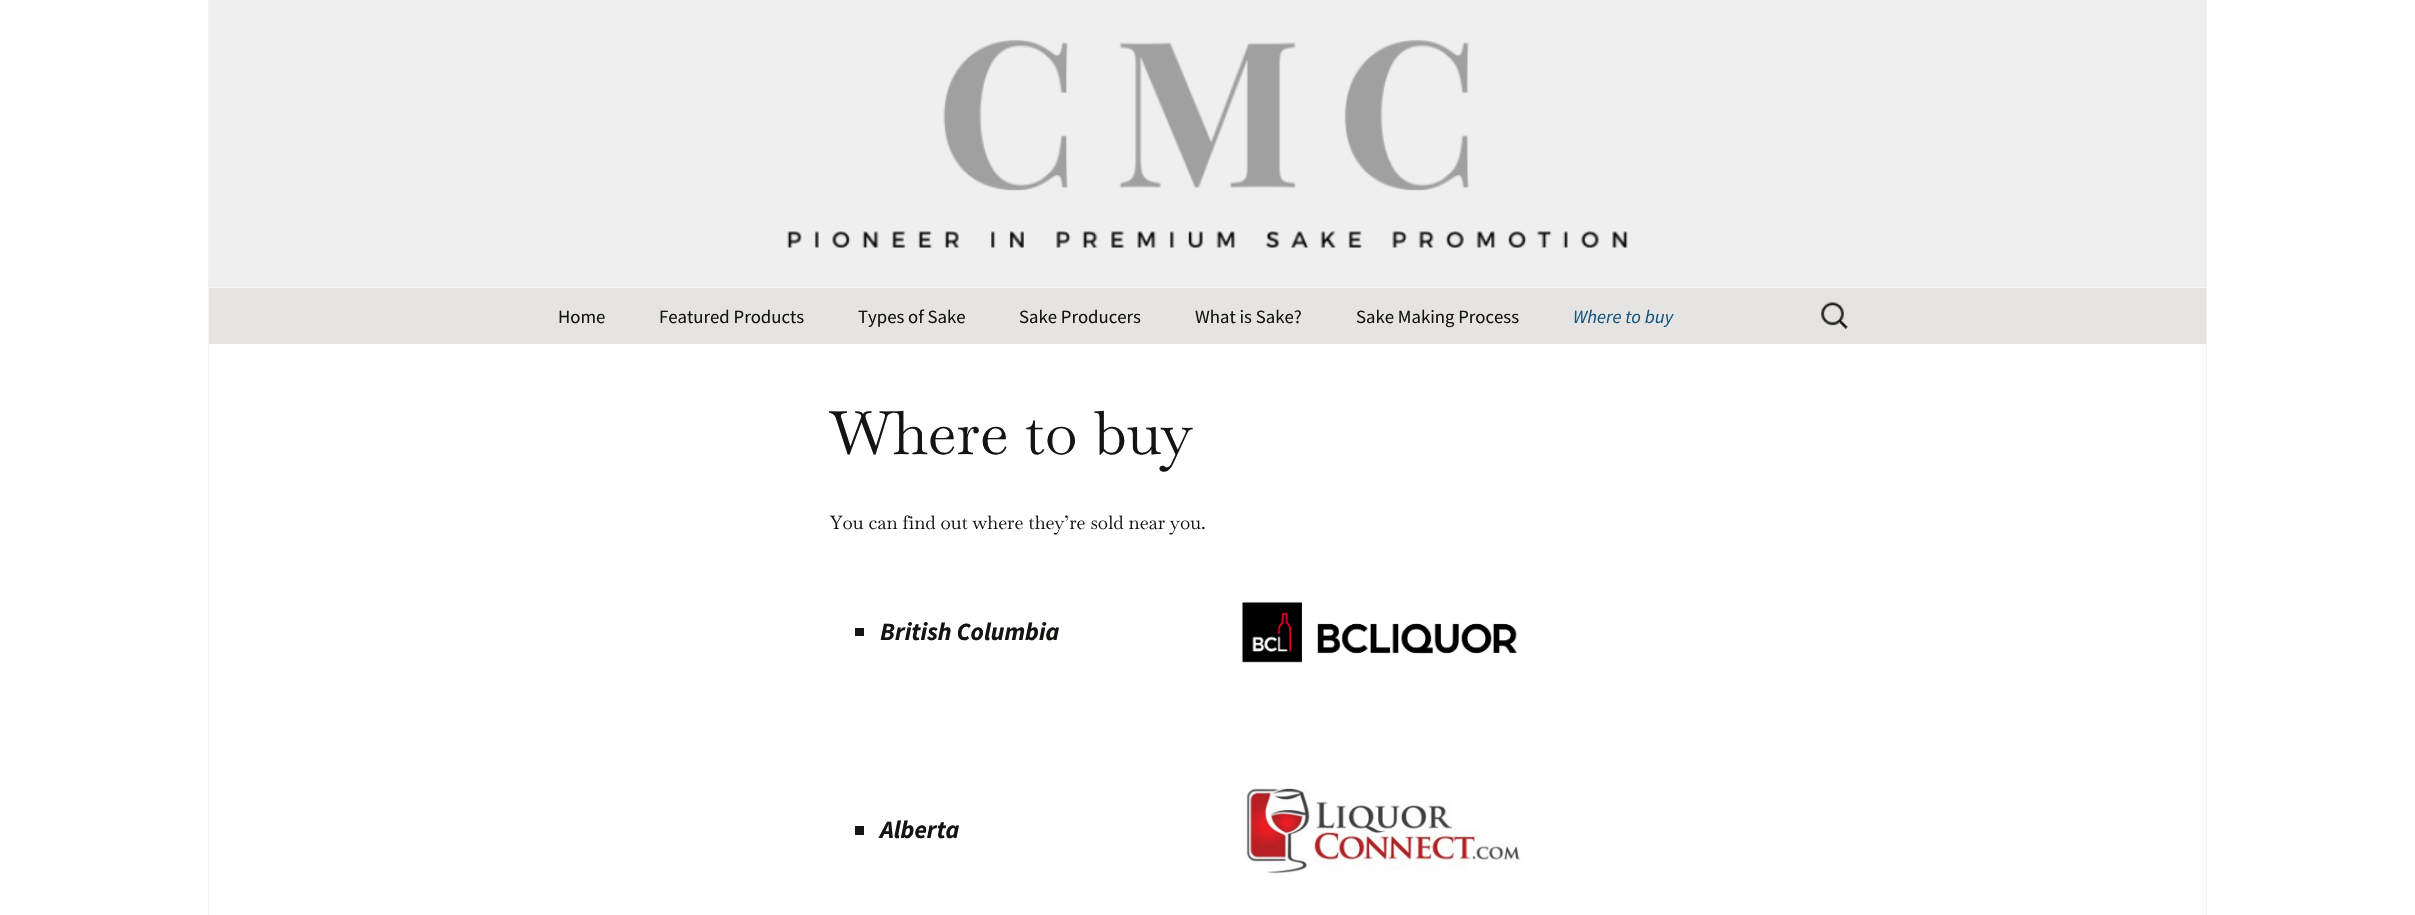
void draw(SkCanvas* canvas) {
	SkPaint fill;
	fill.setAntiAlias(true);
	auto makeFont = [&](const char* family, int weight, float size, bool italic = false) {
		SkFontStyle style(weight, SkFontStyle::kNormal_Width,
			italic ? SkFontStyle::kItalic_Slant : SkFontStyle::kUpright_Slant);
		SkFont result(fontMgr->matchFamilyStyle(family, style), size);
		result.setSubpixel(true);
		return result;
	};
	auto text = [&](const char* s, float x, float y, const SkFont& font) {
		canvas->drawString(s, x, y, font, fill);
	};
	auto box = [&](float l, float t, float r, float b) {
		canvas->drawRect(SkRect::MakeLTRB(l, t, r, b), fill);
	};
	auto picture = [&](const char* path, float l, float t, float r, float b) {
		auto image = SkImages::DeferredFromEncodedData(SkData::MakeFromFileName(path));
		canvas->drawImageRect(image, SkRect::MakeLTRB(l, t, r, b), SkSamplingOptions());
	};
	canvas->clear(0xFFFFFFFF);
	fill.setColor(0xFFF2F2F2);
	box(2206, 0, 2207, 915);
	box(208, 0, 209, 915);
	picture("image0.png", 209, 0, 2206, 288);
	fill.setColor(0xFFE5E4E2);
	box(209, 288, 2206, 344);
	picture("image1.png", 1821, 302, 1848, 329);
	fill.setColor(0xFF141412);
	box(855, 628, 864, 636);
	picture("image2.png", 1241, 601, 1518, 663);
	box(855, 826, 864, 835);
	picture("image3.png", 1246, 788, 1521, 874);
	auto font1 = makeFont("Source Sans Pro", 400, 18.75f);
	text("Home", 558, 323, font1);
	text("Featured Products", 659, 323, font1);
	text("Types of Sake", 858, 323, font1);
	text("Sake Producers", 1019, 323, font1);
	text("What is Sake?", 1195, 323, font1);
	text("Sake Making Process", 1356, 323, font1);
	auto font2 = makeFont("Source Sans Pro", 400, 18.75f, true);
	fill.setColor(0xFF16537E);
	text("Where to buy", 1573, 323, font2);
	auto font3 = makeFont("Baskervville", 400, 60);
	fill.setColor(0xFF141412);
	text("Where to buy", 830, 454, font3);
	auto font4 = makeFont("Baskervville", 400, 18.75f);
	text("You can find out where they’re sold near you.", 830, 529, font4);
	auto font5 = makeFont("Source Sans Pro", 700, 25, true);
	text("British Columbia", 880, 640, font5);
	text("Alberta", 880, 838, font5);
}
